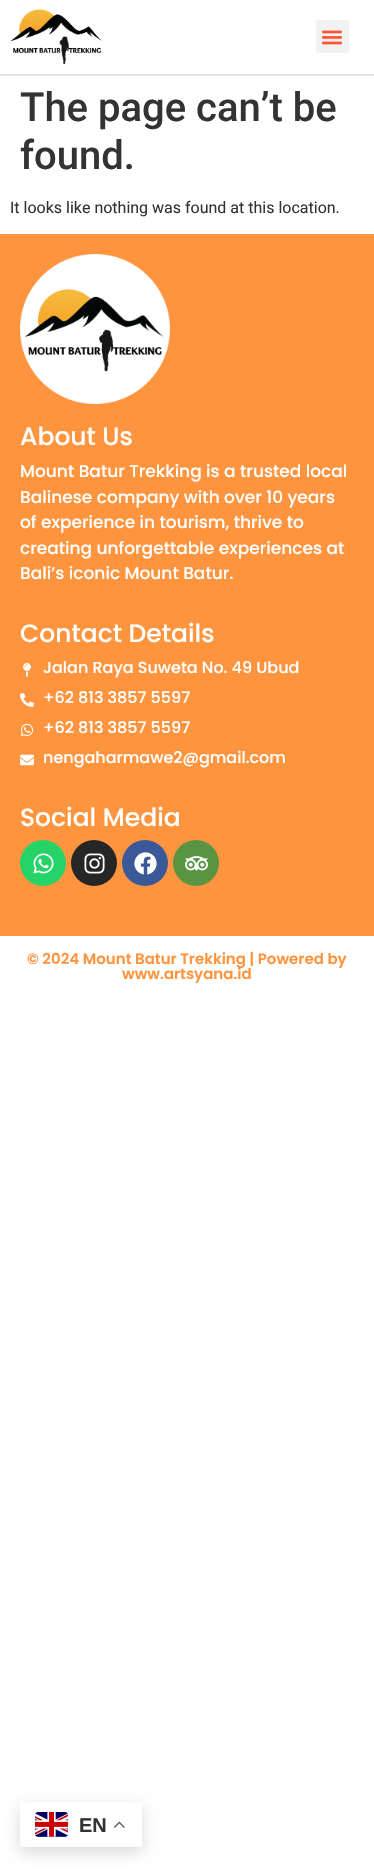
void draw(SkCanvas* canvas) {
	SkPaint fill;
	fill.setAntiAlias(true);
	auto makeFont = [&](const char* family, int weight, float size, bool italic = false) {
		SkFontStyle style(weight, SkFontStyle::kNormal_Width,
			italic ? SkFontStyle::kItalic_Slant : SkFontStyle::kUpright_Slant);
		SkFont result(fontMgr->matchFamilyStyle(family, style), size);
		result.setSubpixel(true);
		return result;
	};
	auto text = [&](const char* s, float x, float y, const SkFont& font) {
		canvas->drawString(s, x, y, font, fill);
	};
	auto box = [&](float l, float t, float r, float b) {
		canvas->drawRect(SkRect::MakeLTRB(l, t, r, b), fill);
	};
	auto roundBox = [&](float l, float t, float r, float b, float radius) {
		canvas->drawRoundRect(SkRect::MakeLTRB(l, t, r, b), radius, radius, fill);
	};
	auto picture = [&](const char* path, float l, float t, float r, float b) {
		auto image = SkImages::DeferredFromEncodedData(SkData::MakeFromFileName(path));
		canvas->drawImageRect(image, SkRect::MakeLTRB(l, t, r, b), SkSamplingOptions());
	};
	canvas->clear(0xFFFFFFFF);
	fill.setColor(0xFFE4E4E4);
	box(0, 74, 374, 76);
	picture("image0.png", 11, 9, 102, 64);
	fill.setColor(0xFFF2F2F2);
	roundBox(316, 20, 349, 53, 3);
	picture("image1.png", 321, 30, 343, 45);
	fill.setColor(0xFFFF943F);
	box(0, 234, 374, 936);
	picture("image2.png", 20, 254, 170, 404);
	picture("image3.png", 23, 663, 31, 677);
	picture("image4.png", 20, 693, 34, 707);
	picture("image5.png", 20, 723, 34, 736);
	picture("image6.png", 20, 754, 34, 766);
	fill.setColor(0xFF25D366);
	canvas->drawCircle(43, 863, 23, fill);
	picture("image7.png", 33, 853, 54, 874);
	fill.setColor(0xFF262626);
	canvas->drawCircle(94, 863, 23, fill);
	picture("image8.png", 84, 853, 105, 874);
	fill.setColor(0xFF3B5998);
	canvas->drawCircle(145, 863, 23, fill);
	picture("image9.png", 134, 852, 157, 875);
	fill.setColor(0xFF589442);
	canvas->drawCircle(196, 863, 23, fill);
	picture("image10.png", 185, 856, 208, 871);
	fill.setColor(0x26000000);
	fill.setMaskFilter(SkMaskFilter::MakeBlur(kNormal_SkBlurStyle, 7.5f));
	canvas->drawRoundRect(SkRect::MakeLTRB(20, 1807, 142, 1852), 2, 2, fill);
	fill.setMaskFilter(nullptr);
	fill.setColor(0xFFFFFFFF);
	roundBox(20, 1802, 142, 1847, 2);
	picture("image11.png", 35, 1812, 68, 1837);
	picture("image12.png", 114, 1821, 125, 1828);
	auto font1 = makeFont("Roboto", 500, 40);
	fill.setColor(0xFF333333);
	text("The page can’t be", 20, 121, font1);
	text("found.", 20, 169, font1);
	auto font2 = makeFont("Roboto", 400, 16);
	text("It looks like nothing was found at this location.", 10, 213, font2);
	auto font3 = makeFont("Poppins", 500, 25);
	fill.setColor(0xFFFFFFFF);
	text("About Us", 20, 445, font3);
	auto font4 = makeFont("Poppins", 500, 17);
	text("Mount Batur Trekking is a trusted local", 20, 477, font4);
	text("Balinese company with over 10 years", 20, 503, font4);
	text("of experience in tourism, thrive to", 20, 528, font4);
	text("creating unforgettable experiences at", 20, 554, font4);
	text("Bali’s iconic Mount Batur.", 20, 579, font4);
	text("Contact Details", 20, 642, font3);
	auto font5 = makeFont("Poppins", 500, 16);
	text("Jalan Raya Suweta No. 49 Ubud", 43, 673, font5);
	text("+62 813 3857 5597", 43, 703, font5);
	text("+62 813 3857 5597", 43, 733, font5);
	text("nengaharmawe2@gmail.com", 43, 763, font5);
	text("Social Media", 20, 826, font3);
	auto font6 = makeFont("Poppins", 600, 15);
	fill.setColor(0xFFFF943F);
	text("© 2024 Mount Batur Trekking | Powered by", 27, 964, font6);
	text("www.artsyana.id", 122, 979, font6);
	auto font7 = makeFont("Liberation Sans", 700, 20);
	fill.setColor(0xFF333333);
	text("EN", 79, 1832, font7);
}
